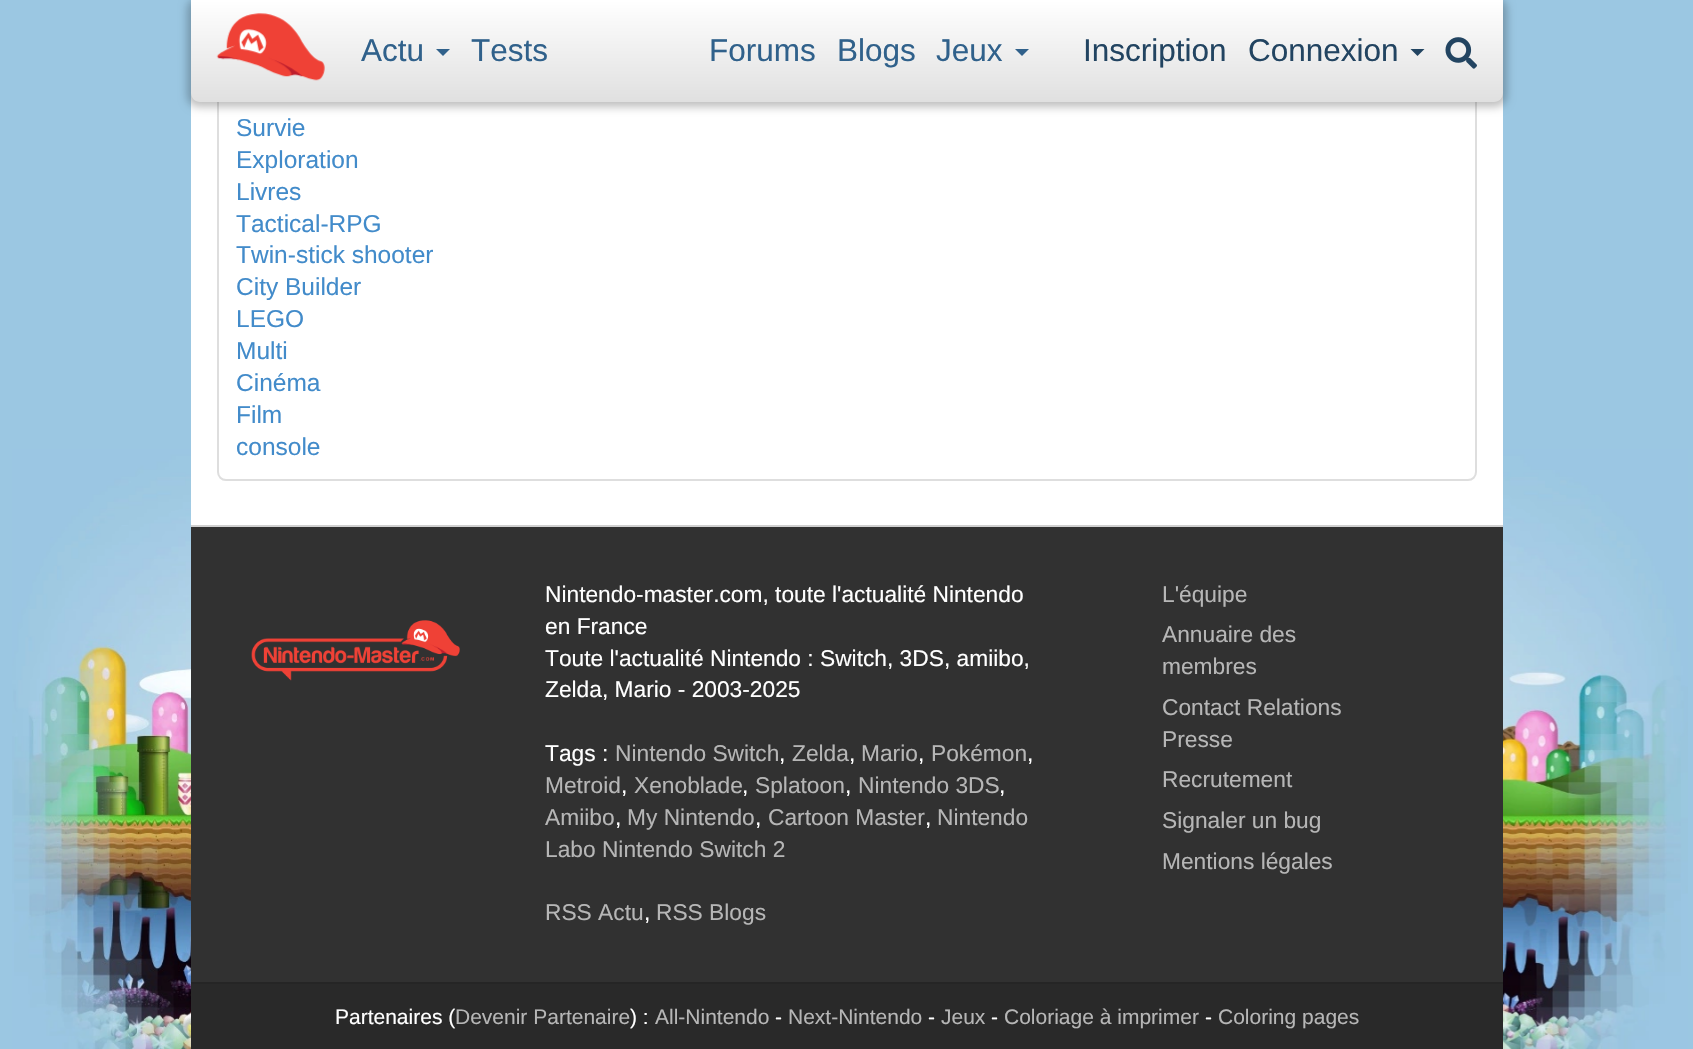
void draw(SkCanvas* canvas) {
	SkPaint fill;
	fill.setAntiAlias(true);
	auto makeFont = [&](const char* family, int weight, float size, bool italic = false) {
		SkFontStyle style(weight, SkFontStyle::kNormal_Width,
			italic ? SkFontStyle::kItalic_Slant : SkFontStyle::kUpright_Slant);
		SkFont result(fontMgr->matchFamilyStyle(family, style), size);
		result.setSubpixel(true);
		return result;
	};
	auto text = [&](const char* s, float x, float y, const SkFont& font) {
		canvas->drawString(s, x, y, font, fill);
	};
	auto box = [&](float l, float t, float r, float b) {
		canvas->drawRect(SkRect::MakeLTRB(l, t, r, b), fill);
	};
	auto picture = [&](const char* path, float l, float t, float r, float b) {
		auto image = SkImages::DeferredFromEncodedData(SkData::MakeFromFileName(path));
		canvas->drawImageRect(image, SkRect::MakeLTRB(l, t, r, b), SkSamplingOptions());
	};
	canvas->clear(0xFF9BC7E2);
	picture("image0.png", 12, 449, 1688, 1049);
	fill.setColor(0xFFFFFFFF);
	box(191, 93, 1503, 525);
	fill.setStyle(SkPaint::kStroke_Style);
	fill.setStrokeWidth(2);
	fill.setColor(0xFFDEDEDE);
	canvas->drawPath(SkPathBuilder().moveTo(218, -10).lineTo(1476, -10).lineTo(1476, 472).cubicTo(1476, 476.5f, 1472.5f, 480, 1468, 480).lineTo(226, 480).cubicTo(221.5f, 480, 218, 476.5f, 218, 472).close().detach(), fill);
	fill.setStyle(SkPaint::kFill_Style);
	fill.setColor(0x40000000);
	fill.setMaskFilter(SkMaskFilter::MakeBlur(kNormal_SkBlurStyle, 4.5f));
	canvas->drawRoundRect(SkRect::MakeLTRB(187, -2, 1507, 107), 12, 12, fill);
	fill.setMaskFilter(nullptr);
	{
		const SkColor colors[] = {0xFFFFFFFF, 0xFFE0E0E0};
		const float stops[] = {0, 1};
		const SkPoint ends[] = {{847, 0}, {847, 102}};
		fill.setShader(SkGradientShader::MakeLinear(ends, colors, stops, 2, SkTileMode::kClamp));
		fill.setAlpha(255);
	}
	canvas->drawPath(SkPathBuilder().moveTo(191, 0).lineTo(1503, 0).lineTo(1503, 93).cubicTo(1503, 98, 1499, 102, 1494, 102).lineTo(200, 102).cubicTo(195, 102, 191, 98, 191, 93).close().detach(), fill);
	picture("image1.png", 216, 13, 325, 81);
	fill.setShader(nullptr);
	fill.setColor(0xFF30618B);
	canvas->drawPath(SkPathBuilder().moveTo(436, 49).lineTo(450, 49).lineTo(443, 56).close().detach(), fill);
	canvas->drawPath(SkPathBuilder().moveTo(1015, 49).lineTo(1029, 49).lineTo(1022, 56).close().detach(), fill);
	fill.setColor(0xFF224461);
	canvas->drawPath(SkPathBuilder().moveTo(1410.5f, 49).lineTo(1424.5f, 49).lineTo(1417.5f, 56).close().detach(), fill);
	picture("image2.png", 1445, 37, 1477, 69);
	fill.setColor(0xFF313131);
	box(191, 527, 1503, 982);
	fill.setColor(0xFFD0D0D0);
	box(191, 525, 1503, 527);
	picture("image3.png", 251, 620, 460, 681);
	fill.setColor(0xFF292929);
	box(191, 984, 1503, 1049);
	fill.setColor(0xFF252525);
	box(191, 982, 1503, 984);
	auto font1 = makeFont("Liberation Sans", 400, 31.5f);
	fill.setColor(0xFF30618B);
	text("Actu", 361, 61, font1);
	text("Tests", 471, 61, font1);
	text("Forums", 709, 61, font1);
	text("Blogs", 837, 61, font1);
	text("Jeux", 936, 61, font1);
	fill.setColor(0xFF224461);
	text("Inscription", 1083, 61, font1);
	text("Connexion", 1248, 61, font1);
	auto font2 = makeFont("Liberation Sans", 400, 24.5f);
	fill.setColor(0xFF428BCA);
	text("Survie", 236, 136, font2);
	text("Exploration", 236, 168, font2);
	text("Livres", 236, 200, font2);
	text("Tactical-RPG", 236, 232, font2);
	text("Twin-stick shooter", 236, 263, font2);
	text("City Builder", 236, 295, font2);
	text("LEGO", 236, 327, font2);
	text("Multi", 236, 359, font2);
	text("Cinéma", 236, 391, font2);
	text("Film", 236, 423, font2);
	text("console", 236, 455, font2);
	auto font3 = makeFont("Liberation Sans", 400, 22.75f);
	fill.setColor(0xFFFFFFFF);
	text("Nintendo-master.com, toute l'actualité Nintendo", 545, 602, font3);
	text("en France", 545, 634, font3);
	text("Toute l'actualité Nintendo : Switch, 3DS, amiibo,", 545, 666, font3);
	text("Zelda, Mario - 2003-2025", 545, 697, font3);
	text("Tags :", 545, 761, font3);
	fill.setColor(0xFFB6B6B6);
	text("Nintendo Switch", 615, 761, font3);
	fill.setColor(0xFFFFFFFF);
	text(",", 779, 761, font3);
	fill.setColor(0xFFB6B6B6);
	text("Zelda", 792, 761, font3);
	fill.setColor(0xFFFFFFFF);
	text(",", 849, 761, font3);
	fill.setColor(0xFFB6B6B6);
	text("Mario", 861, 761, font3);
	fill.setColor(0xFFFFFFFF);
	text(",", 918, 761, font3);
	fill.setColor(0xFFB6B6B6);
	text("Pokémon", 931, 761, font3);
	fill.setColor(0xFFFFFFFF);
	text(",", 1027, 761, font3);
	fill.setColor(0xFFB6B6B6);
	text("Metroid", 545, 793, font3);
	fill.setColor(0xFFFFFFFF);
	text(",", 621, 793, font3);
	fill.setColor(0xFFB6B6B6);
	text("Xenoblade", 634, 793, font3);
	fill.setColor(0xFFFFFFFF);
	text(",", 742, 793, font3);
	fill.setColor(0xFFB6B6B6);
	text("Splatoon", 755, 793, font3);
	fill.setColor(0xFFFFFFFF);
	text(",", 845, 793, font3);
	fill.setColor(0xFFB6B6B6);
	text("Nintendo 3DS", 858, 793, font3);
	fill.setColor(0xFFFFFFFF);
	text(",", 999, 793, font3);
	fill.setColor(0xFFB6B6B6);
	text("Amiibo", 545, 825, font3);
	fill.setColor(0xFFFFFFFF);
	text(",", 615, 825, font3);
	fill.setColor(0xFFB6B6B6);
	text("My Nintendo", 627, 825, font3);
	fill.setColor(0xFFFFFFFF);
	text(",", 755, 825, font3);
	fill.setColor(0xFFB6B6B6);
	text("Cartoon Master", 768, 825, font3);
	fill.setColor(0xFFFFFFFF);
	text(",", 925, 825, font3);
	fill.setColor(0xFFB6B6B6);
	text("Nintendo", 937, 825, font3);
	text("Labo Nintendo Switch 2", 545, 857, font3);
	text("RSS Actu", 545, 920, font3);
	fill.setColor(0xFFFFFFFF);
	text(",", 644, 920, font3);
	fill.setColor(0xFFB6B6B6);
	text("RSS Blogs", 656, 920, font3);
	text("L'équipe", 1162, 602, font3);
	text("Annuaire des", 1162, 642, font3);
	text("membres", 1162, 674, font3);
	text("Contact Relations", 1162, 715, font3);
	text("Presse", 1162, 747, font3);
	text("Recrutement", 1162, 787, font3);
	text("Signaler un bug", 1162, 828, font3);
	text("Mentions légales", 1162, 869, font3);
	auto font4 = makeFont("Liberation Sans", 400, 21);
	fill.setColor(0xFFFFFFFF);
	text("Partenaires (", 335, 1024, font4);
	fill.setColor(0xFFB6B6B6);
	text("Devenir Partenaire", 455, 1024, font4);
	fill.setColor(0xFFFFFFFF);
	text(") :", 630, 1024, font4);
	fill.setColor(0xFFB6B6B6);
	text("All-Nintendo", 655, 1024, font4);
	fill.setColor(0xFFFFFFFF);
	text("-", 775, 1024, font4);
	fill.setColor(0xFFB6B6B6);
	text("Next-Nintendo", 788, 1024, font4);
	fill.setColor(0xFFFFFFFF);
	text("-", 928, 1024, font4);
	fill.setColor(0xFFB6B6B6);
	text("Jeux", 941, 1024, font4);
	fill.setColor(0xFFFFFFFF);
	text("-", 991, 1024, font4);
	fill.setColor(0xFFB6B6B6);
	text("Coloriage à imprimer", 1004, 1024, font4);
	fill.setColor(0xFFFFFFFF);
	text("-", 1205, 1024, font4);
	fill.setColor(0xFFB6B6B6);
	text("Coloring pages", 1218, 1024, font4);
}
